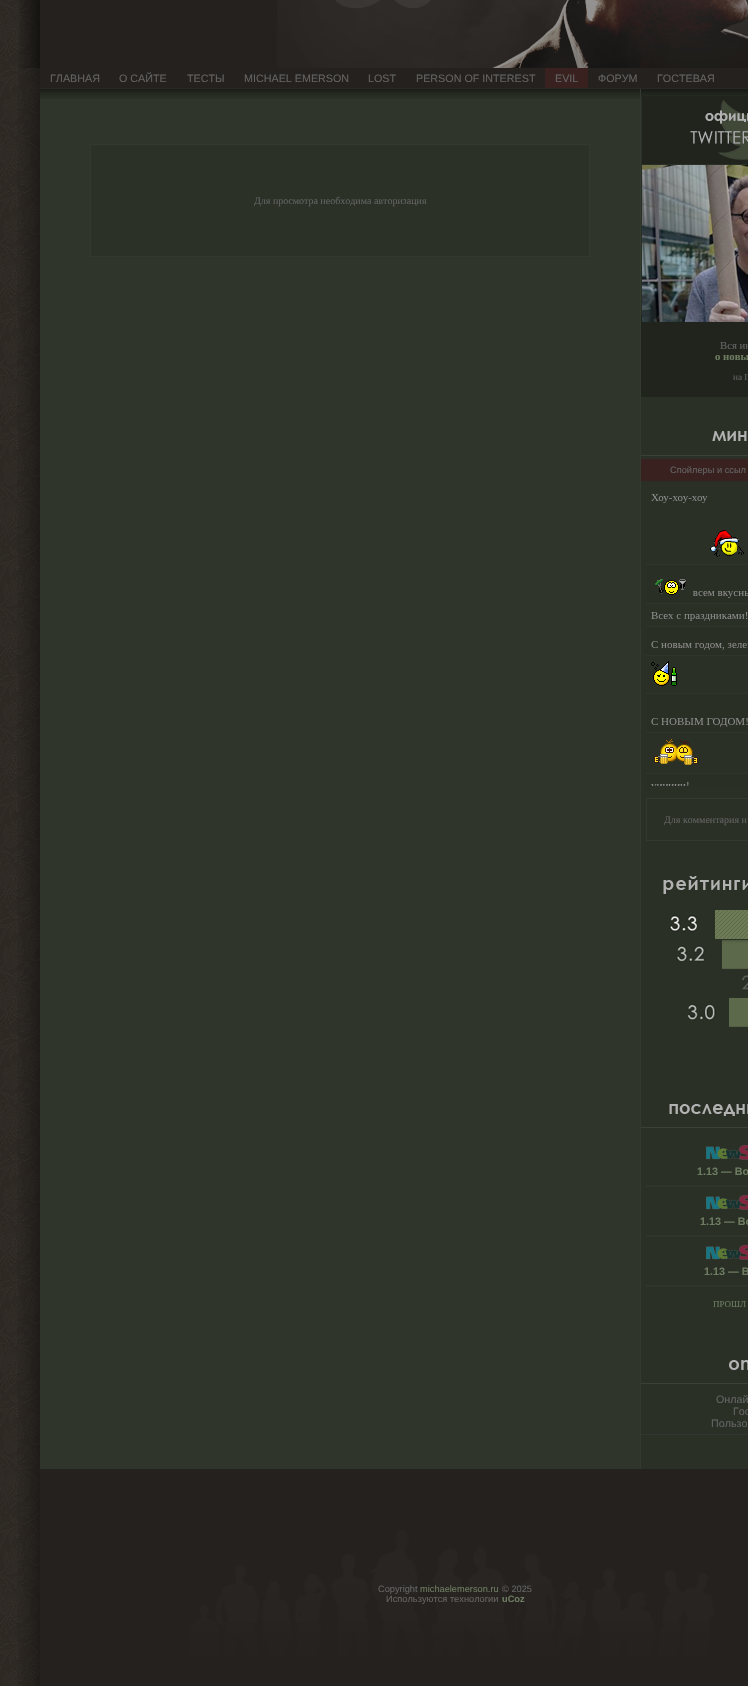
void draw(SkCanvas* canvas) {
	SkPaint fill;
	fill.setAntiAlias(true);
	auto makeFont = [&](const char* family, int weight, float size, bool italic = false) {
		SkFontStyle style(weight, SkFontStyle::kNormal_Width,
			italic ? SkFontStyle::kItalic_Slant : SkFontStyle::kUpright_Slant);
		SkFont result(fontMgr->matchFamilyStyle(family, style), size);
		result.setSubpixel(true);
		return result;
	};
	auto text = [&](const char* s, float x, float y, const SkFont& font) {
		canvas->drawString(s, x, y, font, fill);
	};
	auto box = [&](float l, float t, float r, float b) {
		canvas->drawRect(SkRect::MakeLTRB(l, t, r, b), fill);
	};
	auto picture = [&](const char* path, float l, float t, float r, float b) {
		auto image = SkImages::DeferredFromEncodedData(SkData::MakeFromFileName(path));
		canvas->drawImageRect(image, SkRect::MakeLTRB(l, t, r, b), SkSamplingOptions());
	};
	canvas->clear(0xFFFFFFFF);
	picture("image0.png", 0, 0, 40, 1686);
	picture("image1.png", 18, 0, 40, 68);
	picture("image2.png", 20, 0, 40, 68);
	fill.setColor(0xFF25211E);
	box(40, 0, 277, 68);
	picture("image3.png", 277, 0, 748, 68);
	picture("image4.png", 17, 68, 40, 89);
	box(40, 68, 748, 88);
	fill.setColor(0xFF2B2724);
	box(40, 88, 748, 89);
	fill.setColor(0xFF38211E);
	box(545, 68, 588, 88);
	picture("image5.png", 17, 89, 40, 1469);
	fill.setColor(0xFF2F352A);
	box(40, 89, 640, 1469);
	picture("image6.png", 40, 89, 640, 99);
	fill.setColor(0xFF2B3127);
	canvas->drawRect(SkRect::MakeLTRB(90.5f, 144.5f, 589.5f, 256.5f), fill);
	fill.setStyle(SkPaint::kStroke_Style);
	fill.setStrokeWidth(1);
	fill.setColor(0xFF33392F);
	canvas->drawRect(SkRect::MakeLTRB(90.5f, 144.5f, 589.5f, 256.5f), fill);
	fill.setStyle(SkPaint::kFill_Style);
	fill.setColor(0xFF2A3026);
	box(641, 89, 748, 1469);
	picture("image7.png", 641, 89, 748, 98);
	fill.setColor(0xFF333A2F);
	box(640, 89, 641, 1469);
	picture("image8.png", 642, 96, 748, 164);
	fill.setColor(0xFF20241D);
	box(641, 315, 748, 397);
	picture("image9.png", 642, 165, 748, 322);
	picture("image10.png", 641, 431, 748, 456);
	fill.setColor(0xFF38211E);
	box(641, 459, 748, 481);
	picture("image11.png", 646, 494, 748, 786);
	fill.setStyle(SkPaint::kStroke_Style);
	fill.setColor(0xFF33392F);
	canvas->drawRect(SkRect::MakeLTRB(646.5f, 798.5f, 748.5f, 840.5f), fill);
	picture("image12.png", 663, 876, 748, 1027);
	picture("image13.png", 641, 1104, 748, 1128);
	fill.setStyle(SkPaint::kFill_Style);
	fill.setColor(0xFF2F352A);
	box(646, 1185, 748, 1187);
	picture("image14.png", 706, 1145, 748, 1160);
	box(646, 1235, 748, 1237);
	picture("image14.png", 706, 1195, 748, 1210);
	box(646, 1285, 748, 1287);
	picture("image14.png", 706, 1245, 748, 1260);
	picture("image15.png", 641, 1360, 748, 1384);
	fill.setColor(0xFF343434);
	box(641, 1434, 748, 1435);
	picture("image16.png", 17, 1469, 40, 1686);
	picture("image17.png", 40, 1469, 748, 1686);
	auto font1 = makeFont("Liberation Sans", 400, 10.75f);
	fill.setColor(0xFF636363);
	text("ГЛАВНАЯ", 50, 82, font1);
	text("О САЙТЕ", 119, 82, font1);
	text("ТЕСТЫ", 187, 82, font1);
	text("MICHAEL EMERSON", 244, 82, font1);
	text("LOST", 368, 82, font1);
	text("PERSON OF INTEREST", 416, 82, font1);
	text("EVIL", 555, 82, font1);
	text("ФОРУМ", 598, 82, font1);
	text("ГОСТЕВАЯ", 657, 82, font1);
	auto font2 = makeFont("Liberation Serif", 400, 10);
	text("Для просмотра необходима авторизация", 254, 204, font2);
	auto font3 = makeFont("Liberation Serif", 400, 10.75f);
	text("Вся ин", 720, 349, font3);
	auto font4 = makeFont("Liberation Serif", 700, 10.75f);
	fill.setColor(0xFF6D7C61);
	text("о новы", 715, 360, font4);
	auto font5 = makeFont("Liberation Serif", 400, 9.25f);
	fill.setColor(0xFF636363);
	text("на Г", 733, 380, font5);
	auto font6 = makeFont("Liberation Sans", 400, 9.25f);
	text("Спойлеры и ссыл", 670, 473, font6);
	text("Для комментария н", 664, 823, font2);
	auto font7 = makeFont("Liberation Sans", 700, 10.75f);
	fill.setColor(0xFF6D7C61);
	text("1.13 — Bo", 697, 1175, font7);
	text("1.13 — Bo", 700, 1225, font7);
	text("1.13 — B", 704, 1275, font7);
	auto font8 = makeFont("Liberation Serif", 400, 9);
	text("ПРОШЛ", 713, 1307, font8);
	fill.setColor(0xFF636363);
	text("Онлай", 716, 1403, font1);
	text("Гос", 733, 1415, font1);
	text("Пользо", 711, 1427, font1);
	text("Copyright", 378, 1592, font6);
	fill.setColor(0xFF6D7C61);
	text("michaelemerson.ru", 420, 1592, font6);
	fill.setColor(0xFF636363);
	text("© 2025", 502, 1592, font6);
	text("Используются технологии", 386, 1602, font6);
	auto font9 = makeFont("Liberation Sans", 700, 9.25f);
	fill.setColor(0xFF6D7C61);
	text("uCoz", 502, 1602, font9);
}
